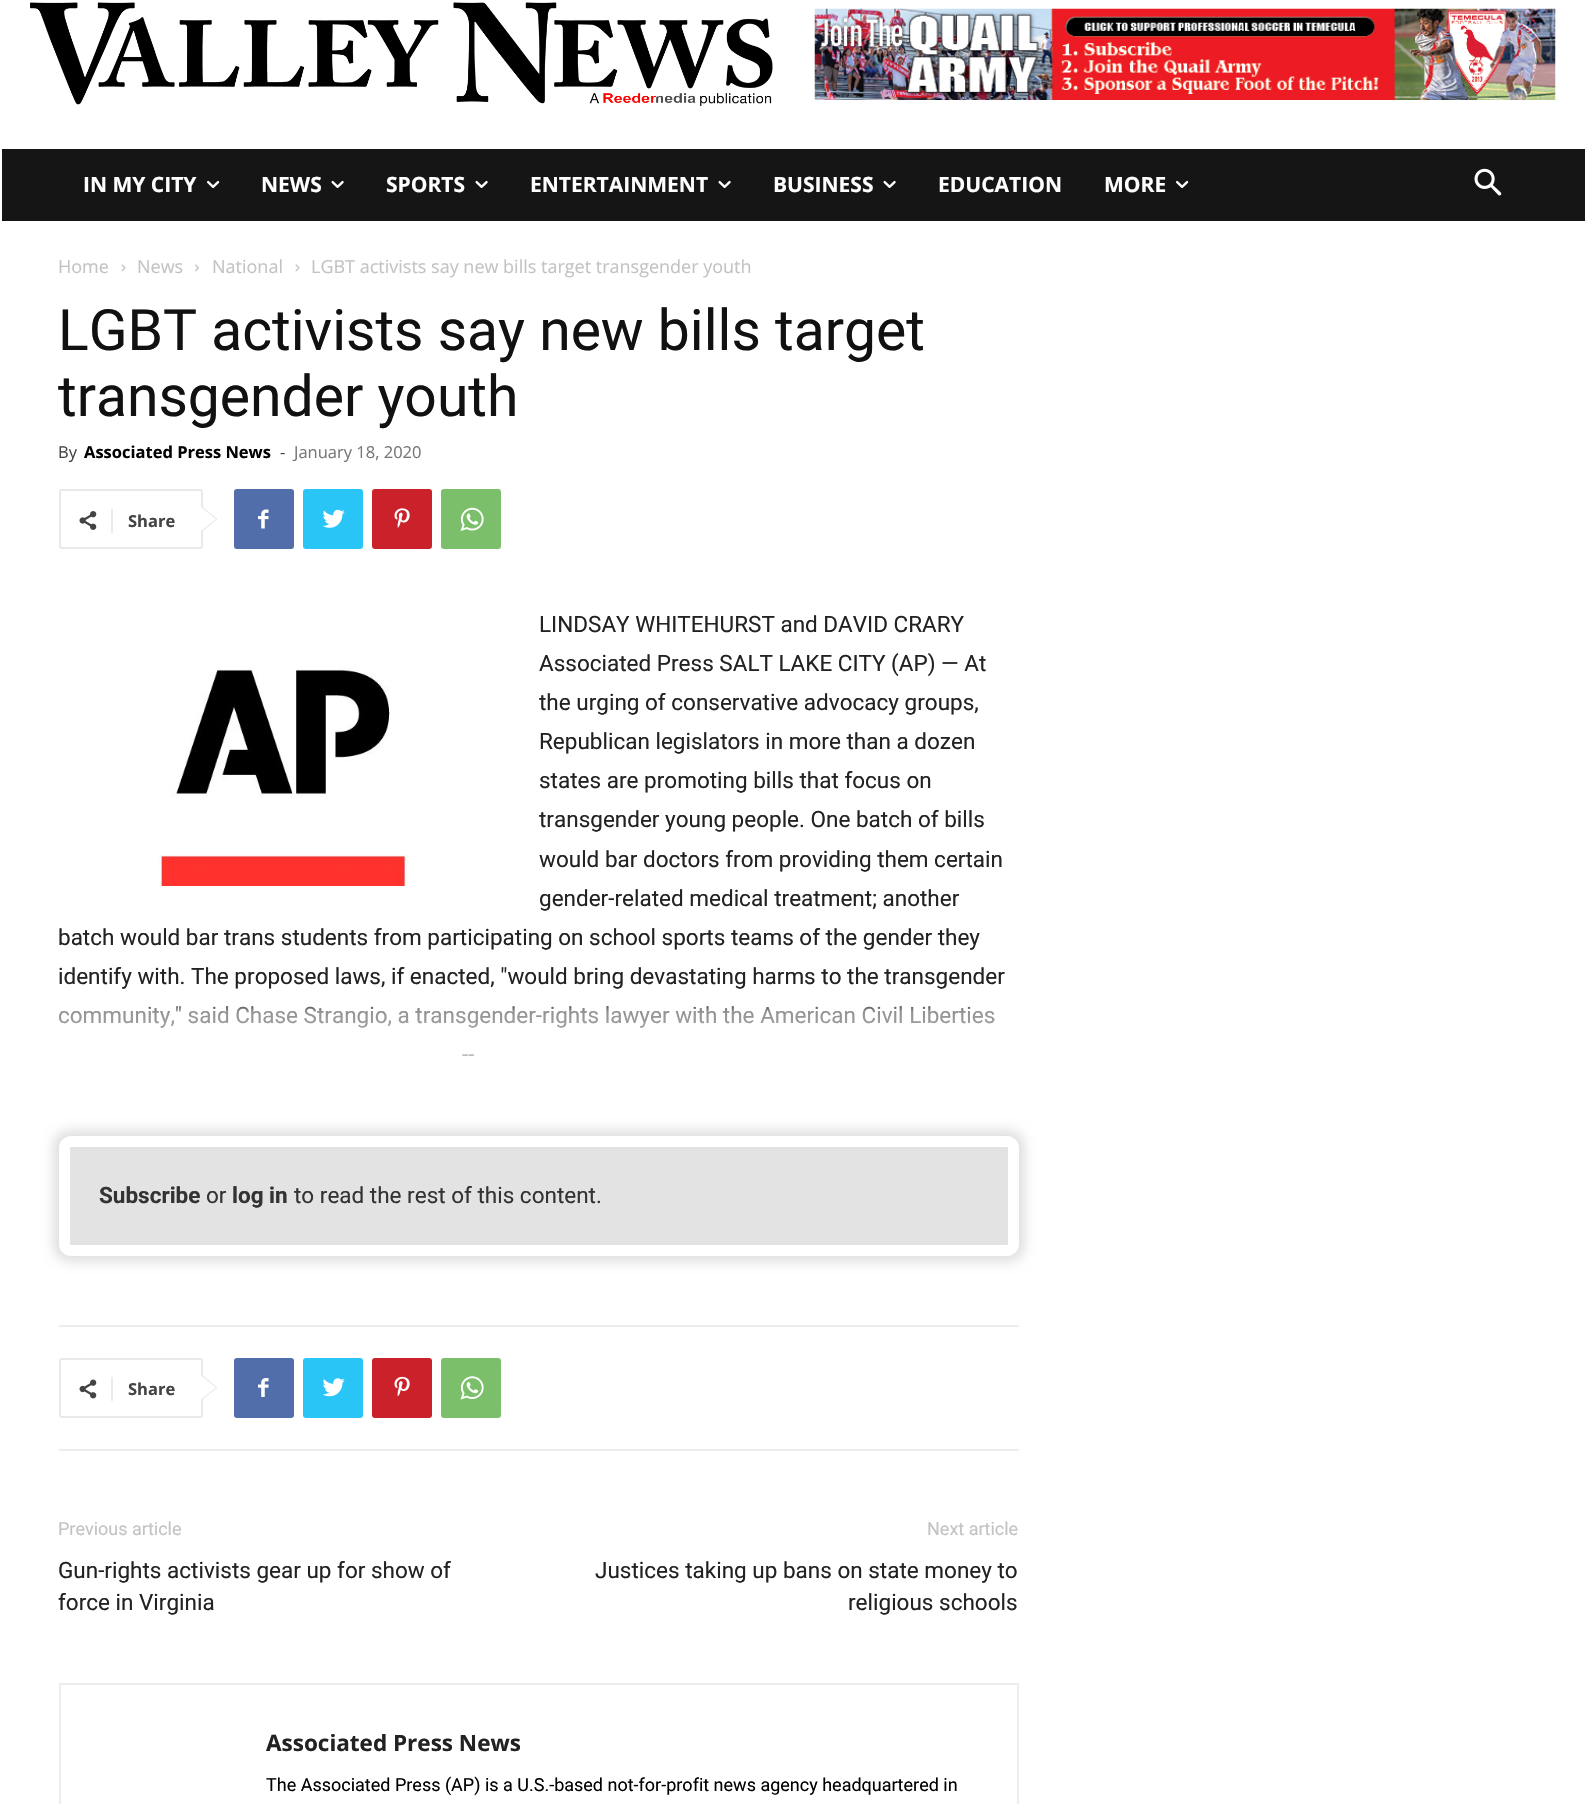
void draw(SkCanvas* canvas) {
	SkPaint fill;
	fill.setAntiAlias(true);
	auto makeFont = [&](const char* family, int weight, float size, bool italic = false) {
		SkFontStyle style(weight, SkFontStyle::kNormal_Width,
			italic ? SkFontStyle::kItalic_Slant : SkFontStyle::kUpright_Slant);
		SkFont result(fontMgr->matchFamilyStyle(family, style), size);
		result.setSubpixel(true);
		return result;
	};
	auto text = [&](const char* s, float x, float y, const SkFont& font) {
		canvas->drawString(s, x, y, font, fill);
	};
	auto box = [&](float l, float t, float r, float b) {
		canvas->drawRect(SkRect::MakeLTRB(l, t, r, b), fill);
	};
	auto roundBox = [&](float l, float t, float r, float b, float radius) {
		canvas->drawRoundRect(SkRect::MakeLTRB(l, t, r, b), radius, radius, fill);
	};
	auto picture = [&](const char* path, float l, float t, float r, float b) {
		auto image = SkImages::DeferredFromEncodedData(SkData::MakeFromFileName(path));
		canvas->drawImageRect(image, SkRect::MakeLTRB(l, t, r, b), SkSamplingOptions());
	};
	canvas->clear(0xFFFFFFFF);
	picture("image0.png", 30, 2, 773, 106);
	picture("image1.png", 814, 8, 1556, 100);
	fill.setColor(0xFF151515);
	box(2, 149, 1585, 221);
	picture("image2.png", 207, 180, 220, 188);
	picture("image3.png", 331, 180, 344, 188);
	picture("image3.png", 475, 180, 488, 188);
	picture("image3.png", 718, 180, 731, 188);
	picture("image3.png", 883, 180, 896, 188);
	picture("image2.png", 1176, 180, 1189, 188);
	picture("image4.png", 1474, 168, 1502, 196);
	picture("image5.png", 121, 264, 126, 272);
	picture("image6.png", 195, 264, 199, 272);
	picture("image5.png", 295, 264, 300, 272);
	fill.setStyle(SkPaint::kStroke_Style);
	fill.setStrokeWidth(2);
	fill.setColor(0xFFE9E9E9);
	canvas->drawRoundRect(SkRect::MakeLTRB(60, 490, 202, 548), 2, 2, fill);
	fill.setStyle(SkPaint::kFill_Style);
	canvas->drawPath(SkPathBuilder().moveTo(201, 532.5f).lineTo(201, 505.5f).lineTo(217.5f, 519).close().detach(), fill);
	picture("image7.png", 79, 511, 97, 530);
	fill.setColor(0xFFEBEBEB);
	box(111, 509, 113, 533);
	fill.setColor(0xFFFFFFFF);
	canvas->drawPath(SkPathBuilder().moveTo(201, 531).lineTo(201, 507).lineTo(216, 519).close().detach(), fill);
	fill.setColor(0xFF516EAB);
	roundBox(234, 489, 294, 549, 3);
	picture("image8.png", 258, 509, 269, 529);
	fill.setColor(0xFF29C5F6);
	roundBox(303, 489, 363, 549, 3);
	picture("image9.png", 322, 509, 345, 528);
	fill.setColor(0xFFCA212A);
	roundBox(372, 489, 432, 549, 3);
	picture("image10.png", 394, 508, 410, 528);
	fill.setColor(0xFF7BBF6A);
	roundBox(441, 489, 501, 549, 3);
	picture("image11.png", 460, 507, 484, 531);
	picture("image12.png", 158, 667, 409, 886);
	fill.setColor(0x1F000000);
	fill.setMaskFilter(SkMaskFilter::MakeBlur(kNormal_SkBlurStyle, 5.5f));
	canvas->drawRoundRect(SkRect::MakeLTRB(53, 1130, 1025, 1262), 17, 17, fill);
	fill.setMaskFilter(nullptr);
	fill.setColor(0xFFE3E3E3);
	canvas->drawRoundRect(SkRect::MakeLTRB(64.5f, 1141.5f, 1013.5f, 1250.5f), 6.5f, 6.5f, fill);
	fill.setStyle(SkPaint::kStroke_Style);
	fill.setStrokeWidth(11);
	fill.setColor(0xFFFFFFFF);
	canvas->drawRoundRect(SkRect::MakeLTRB(64.5f, 1141.5f, 1013.5f, 1250.5f), 6.5f, 6.5f, fill);
	fill.setStyle(SkPaint::kFill_Style);
	fill.setColor(0xFFEDEDED);
	box(59, 1325, 1019, 1327);
	box(59, 1449, 1019, 1451);
	fill.setStyle(SkPaint::kStroke_Style);
	fill.setStrokeWidth(2);
	fill.setColor(0xFFE9E9E9);
	canvas->drawRoundRect(SkRect::MakeLTRB(60, 1359, 202, 1417), 2, 2, fill);
	fill.setStyle(SkPaint::kFill_Style);
	canvas->drawPath(SkPathBuilder().moveTo(201, 1401).lineTo(201, 1374).lineTo(217.5f, 1387.5f).close().detach(), fill);
	picture("image13.png", 79, 1379, 97, 1399);
	fill.setColor(0xFFEBEBEB);
	box(111, 1377, 113, 1401);
	fill.setColor(0xFFFFFFFF);
	canvas->drawPath(SkPathBuilder().moveTo(201, 1399.5f).lineTo(201, 1375.5f).lineTo(216, 1387.5f).close().detach(), fill);
	fill.setColor(0xFF516EAB);
	roundBox(234, 1358, 294, 1418, 3);
	picture("image14.png", 258, 1378, 269, 1397);
	fill.setColor(0xFF29C5F6);
	roundBox(303, 1358, 363, 1418, 3);
	picture("image15.png", 322, 1378, 345, 1397);
	fill.setColor(0xFFCA212A);
	roundBox(372, 1358, 432, 1418, 3);
	picture("image16.png", 394, 1376, 410, 1397);
	fill.setColor(0xFF7BBF6A);
	roundBox(441, 1358, 501, 1418, 3);
	picture("image17.png", 460, 1376, 484, 1400);
	fill.setStyle(SkPaint::kStroke_Style);
	fill.setColor(0xFFEDEDED);
	canvas->drawRect(SkRect::MakeLTRB(60, 1684, 1018, 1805), fill);
	auto font1 = makeFont("Open Sans", 700, 21);
	fill.setStyle(SkPaint::kFill_Style);
	fill.setColor(0xFFFFFFFF);
	text("IN MY CITY", 83, 192, font1);
	text("NEWS", 261, 192, font1);
	text("SPORTS", 386, 192, font1);
	text("ENTERTAINMENT", 530, 192, font1);
	text("BUSINESS", 773, 192, font1);
	text("EDUCATION", 938, 192, font1);
	text("MORE", 1104, 192, font1);
	auto font2 = makeFont("Open Sans", 400, 18);
	fill.setColor(0xFFC3C3C3);
	text("Home", 58, 273, font2);
	text("News", 137, 273, font2);
	text("National", 212, 273, font2);
	text("LGBT activists say new bills target transgender youth", 311, 273, font2);
	auto font3 = makeFont("Roboto", 400, 57);
	fill.setColor(0xFF111111);
	text("LGBT activists say new bills target", 58, 350, font3);
	text("transgender youth", 58, 416, font3);
	auto font4 = makeFont("Open Sans", 400, 16.5f);
	fill.setColor(0xFF444444);
	text("By", 58, 458, font4);
	auto font5 = makeFont("Open Sans", 700, 16.5f);
	fill.setColor(0xFF000000);
	text("Associated Press News", 84, 458, font5);
	fill.setColor(0xFF444444);
	text("-", 280, 458, font4);
	fill.setColor(0xFF767676);
	text("January 18, 2020", 294, 458, font4);
	fill.setColor(0xFF444444);
	text("Share", 128, 527, font5);
	auto font6 = makeFont("Roboto", 400, 22.5f);
	fill.setColor(0xFF222222);
	text("LINDSAY WHITEHURST and DAVID CRARY", 539, 632, font6);
	text("Associated Press SALT LAKE CITY (AP) — At", 539, 671, font6);
	text("the urging of conservative advocacy groups,", 539, 710, font6);
	text("Republican legislators in more than a dozen", 539, 749, font6);
	text("states are promoting bills that focus on", 539, 788, font6);
	text("transgender young people. One batch of bills", 539, 827, font6);
	text("would bar doctors from providing them certain", 539, 867, font6);
	text("gender-related medical treatment; another", 539, 906, font6);
	text("batch would bar trans students from participating on school sports teams of the gender they", 58, 945, font6);
	text("identify with. The proposed laws, if enacted, \"would bring devastating harms to the transgender", 58, 984, font6);
	text("community,\" said Chase Strangio, a transgender-rights lawyer with the American Civil Liberties", 58, 1023, font6);
	text("--", 462, 1062, font6);
	{
		const SkColor colors[] = {0x00FFFFFF, 0x80FFFFFF, 0xFFFFFFFF, 0xFFFFFFFF};
		const float stops[] = {0, 0.04f, 0.49f, 1};
		const SkPoint ends[] = {{539, 1001}, {539, 1256}};
		fill.setShader(SkGradientShader::MakeLinear(ends, colors, stops, 4, SkTileMode::kClamp));
		fill.setAlpha(255);
	}
	box(59, 1006, 994, 1057);
	auto font7 = makeFont("Roboto", 700, 22.5f);
	fill.setShader(nullptr);
	fill.setColor(0xFF333333);
	text("Subscribe", 99, 1203, font7);
	text("or", 206, 1203, font6);
	text("log in", 232, 1203, font7);
	text("to read the rest of this content.", 294, 1203, font6);
	fill.setColor(0xFF444444);
	text("Share", 128, 1395, font5);
	auto font8 = makeFont("Roboto", 400, 18);
	fill.setColor(0xFFC3C3C3);
	text("Previous article", 58, 1535, font8);
	fill.setColor(0xFF222222);
	text("Gun-rights activists gear up for show of", 58, 1578, font6);
	text("force in Virginia", 58, 1610, font6);
	fill.setColor(0xFFC3C3C3);
	text("Next article", 927, 1535, font8);
	fill.setColor(0xFF222222);
	text("Justices taking up bans on state money to", 595, 1578, font6);
	text("religious schools", 848, 1610, font6);
	auto font9 = makeFont("Open Sans", 700, 22.5f);
	text("Associated Press News", 266, 1751, font9);
	fill.setColor(0xFF000000);
	text("The Associated Press (AP) is a U.S.-based not-for-profit news agency headquartered in", 266, 1791, font8);
}
